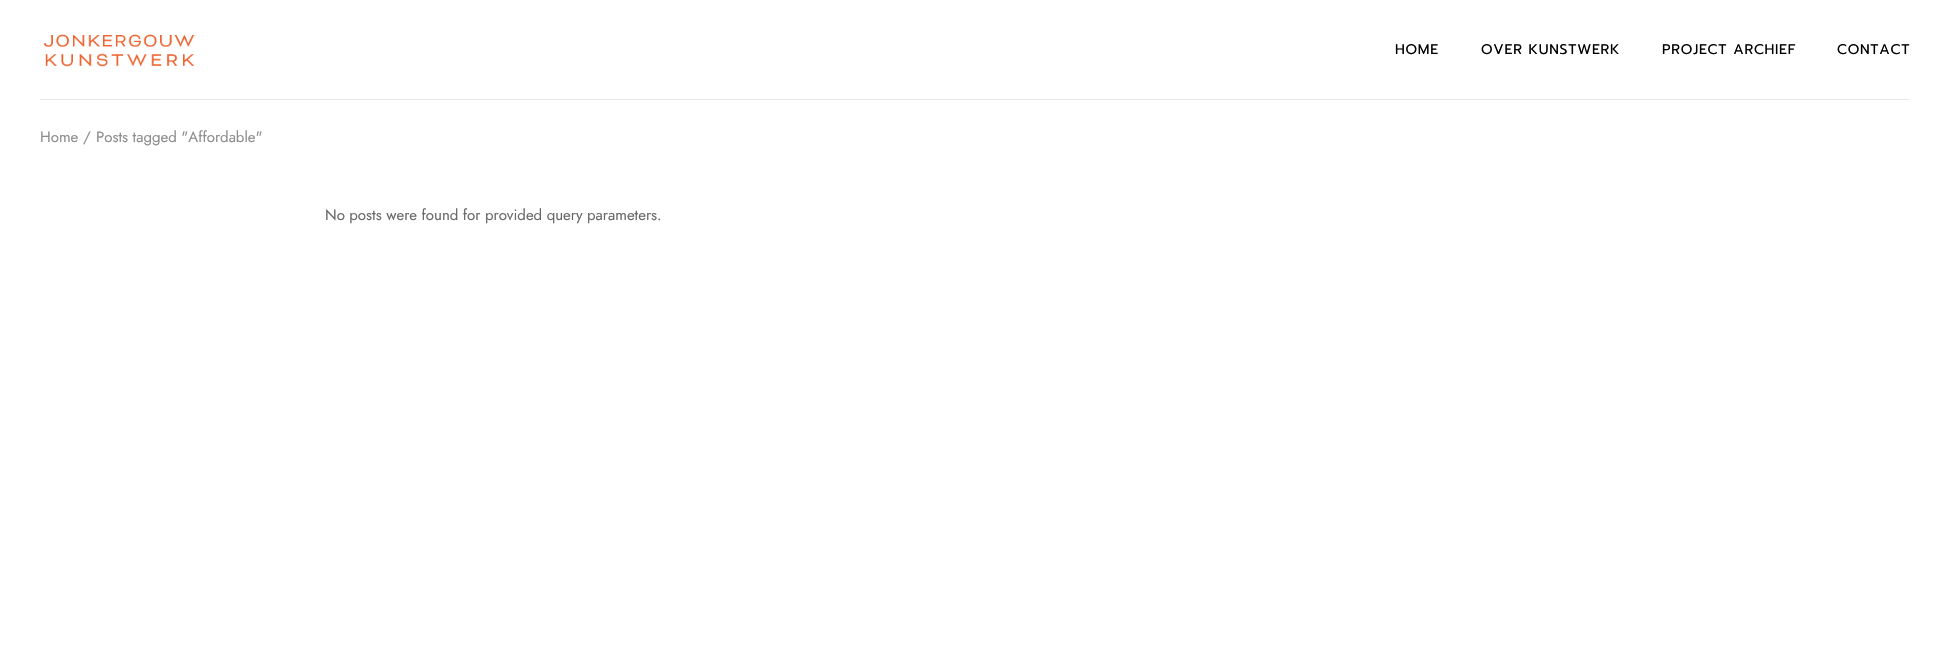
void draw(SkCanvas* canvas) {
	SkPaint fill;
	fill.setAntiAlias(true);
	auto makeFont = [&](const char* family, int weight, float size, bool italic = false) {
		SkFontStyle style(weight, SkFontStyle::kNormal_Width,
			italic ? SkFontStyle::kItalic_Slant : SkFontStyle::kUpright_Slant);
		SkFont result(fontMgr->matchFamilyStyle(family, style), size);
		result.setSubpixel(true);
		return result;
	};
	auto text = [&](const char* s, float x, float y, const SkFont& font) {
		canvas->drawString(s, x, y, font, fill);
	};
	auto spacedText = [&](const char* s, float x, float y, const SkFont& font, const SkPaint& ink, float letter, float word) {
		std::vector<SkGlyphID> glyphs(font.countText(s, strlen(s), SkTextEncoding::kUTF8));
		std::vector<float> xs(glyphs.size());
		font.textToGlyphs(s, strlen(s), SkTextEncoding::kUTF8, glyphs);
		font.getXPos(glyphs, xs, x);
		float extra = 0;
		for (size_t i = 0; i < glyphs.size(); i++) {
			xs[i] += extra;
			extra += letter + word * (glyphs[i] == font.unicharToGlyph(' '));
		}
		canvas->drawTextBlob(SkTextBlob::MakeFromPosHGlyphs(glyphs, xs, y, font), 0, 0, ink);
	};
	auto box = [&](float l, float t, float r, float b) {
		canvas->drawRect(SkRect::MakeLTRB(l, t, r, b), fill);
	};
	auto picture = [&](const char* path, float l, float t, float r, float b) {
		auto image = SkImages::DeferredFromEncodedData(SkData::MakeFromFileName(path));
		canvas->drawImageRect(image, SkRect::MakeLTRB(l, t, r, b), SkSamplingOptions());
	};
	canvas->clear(0xFFFFFFFF);
	picture("image0.png", 43, 34, 195, 67);
	fill.setColor(0xFFE9E9E9);
	box(40, 99, 1910, 100);
	auto font1 = makeFont("Prompt", 400, 14);
	fill.setColor(0xFF000000);
	spacedText("HOME", 1395, 54, font1, fill, 0.75f, 0);
	spacedText("OVER KUNSTWERK", 1481, 54, font1, fill, 0.75f, 0);
	spacedText("PROJECT ARCHIEF", 1662, 54, font1, fill, 0.75f, 0);
	spacedText("CONTACT", 1837, 54, font1, fill, 0.75f, 0);
	auto font2 = makeFont("Jost", 400, 15);
	fill.setColor(0xFF8D8D8D);
	text("Home", 40, 142, font2);
	text("/", 83, 142, font2);
	text("Posts tagged \"Affordable\"", 96, 142, font2);
	fill.setColor(0xFF696969);
	text("No posts were found for provided query parameters.", 325, 220, font2);
}
